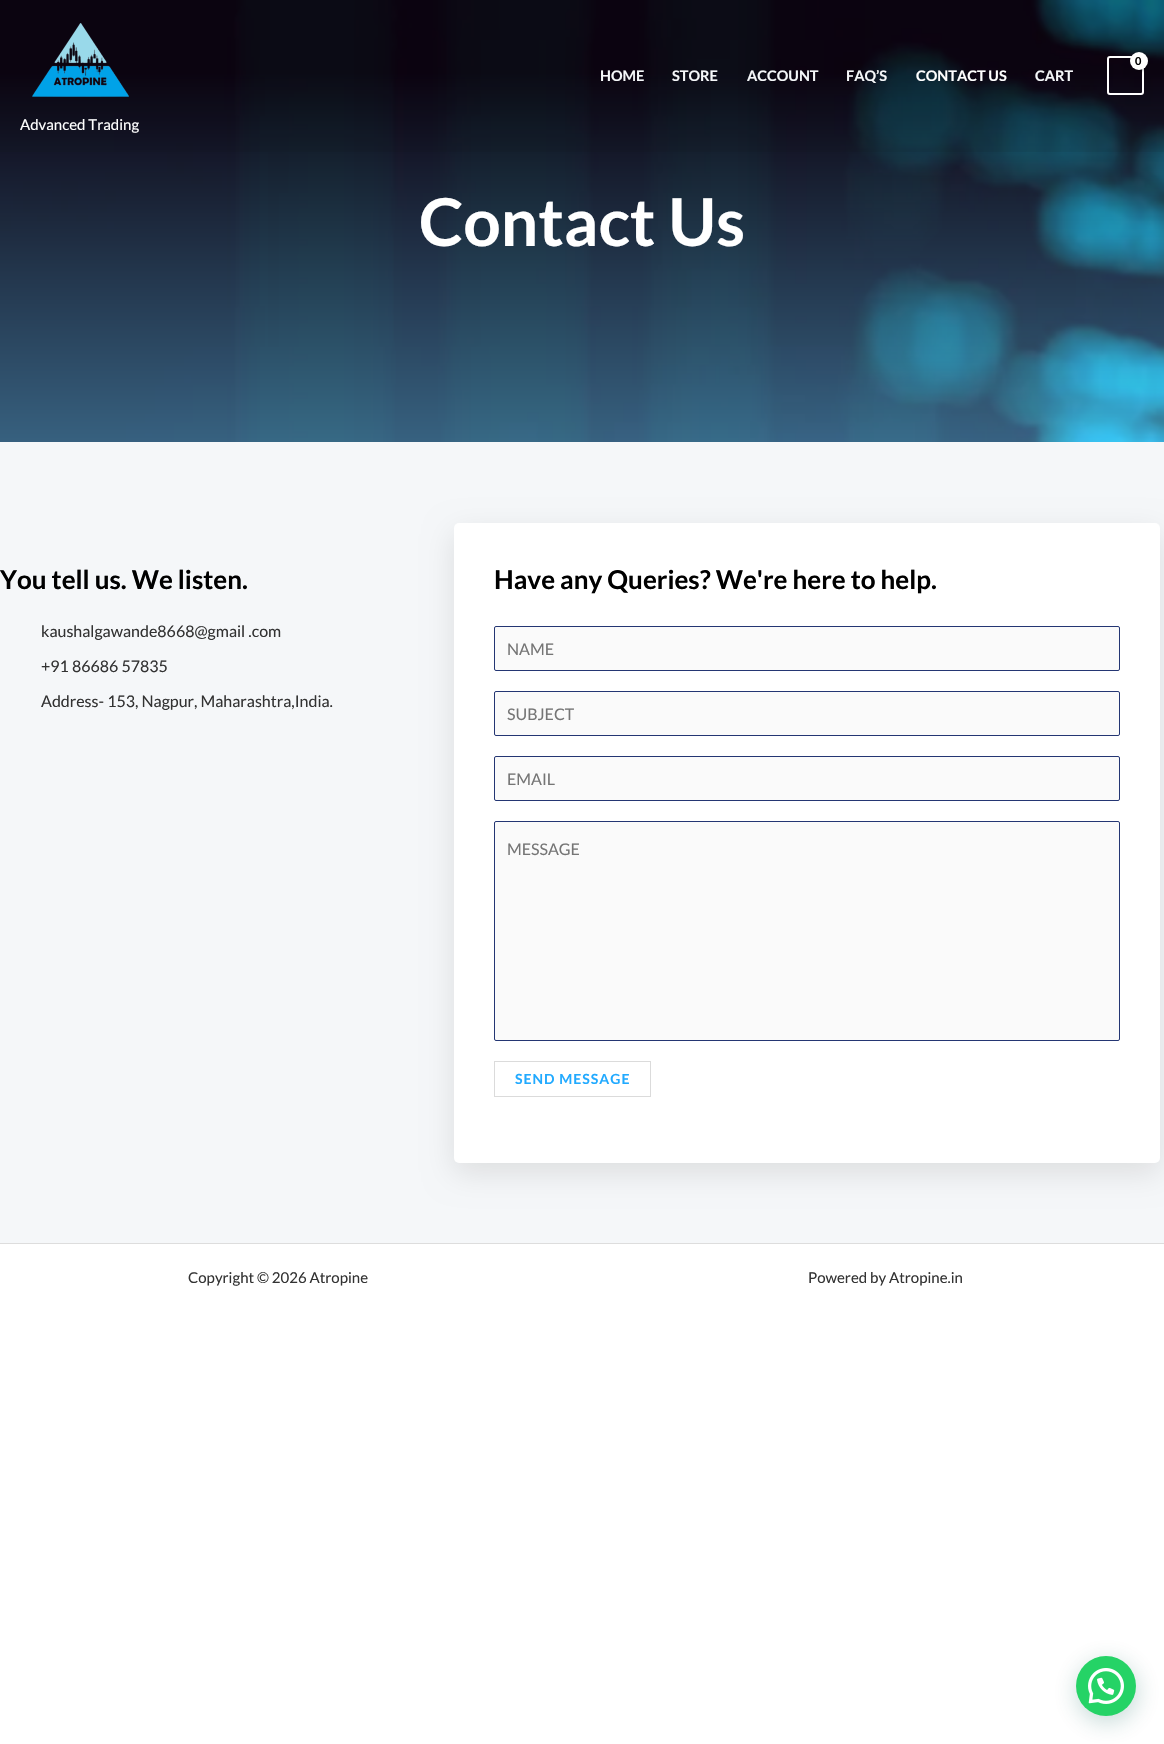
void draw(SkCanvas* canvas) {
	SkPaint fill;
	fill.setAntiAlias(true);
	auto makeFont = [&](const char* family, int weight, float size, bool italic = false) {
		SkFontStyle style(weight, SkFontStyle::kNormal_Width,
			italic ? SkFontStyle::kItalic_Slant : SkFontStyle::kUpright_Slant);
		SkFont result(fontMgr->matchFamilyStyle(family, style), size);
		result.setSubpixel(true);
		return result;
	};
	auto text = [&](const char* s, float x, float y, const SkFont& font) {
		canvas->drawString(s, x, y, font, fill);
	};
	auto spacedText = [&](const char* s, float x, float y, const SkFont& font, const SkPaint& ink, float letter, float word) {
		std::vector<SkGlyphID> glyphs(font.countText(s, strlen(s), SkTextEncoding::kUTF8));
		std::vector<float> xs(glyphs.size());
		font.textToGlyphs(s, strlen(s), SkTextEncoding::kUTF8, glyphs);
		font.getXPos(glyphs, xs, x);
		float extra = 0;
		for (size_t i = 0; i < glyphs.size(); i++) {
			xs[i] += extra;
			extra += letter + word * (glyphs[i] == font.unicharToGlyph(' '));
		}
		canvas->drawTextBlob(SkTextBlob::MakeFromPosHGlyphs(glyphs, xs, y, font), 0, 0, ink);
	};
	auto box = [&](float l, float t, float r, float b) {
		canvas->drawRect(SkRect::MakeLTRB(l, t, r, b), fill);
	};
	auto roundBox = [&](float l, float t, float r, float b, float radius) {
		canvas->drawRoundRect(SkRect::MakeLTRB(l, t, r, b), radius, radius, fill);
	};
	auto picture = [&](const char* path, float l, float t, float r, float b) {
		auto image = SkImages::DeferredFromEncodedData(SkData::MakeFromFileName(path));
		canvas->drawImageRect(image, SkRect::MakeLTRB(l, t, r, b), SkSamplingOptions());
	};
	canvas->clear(0xFFFFFFFF);
	picture("image1.png", 0, 0, 1164, 442);
	fill.setColor(0x12000000);
	box(0, 0, 1164, 152);
	fill.setStyle(SkPaint::kStroke_Style);
	fill.setStrokeWidth(2);
	fill.setColor(0xFFFFFFFF);
	canvas->drawRoundRect(SkRect::MakeLTRB(1108, 57, 1143, 94), 2, 2, fill);
	fill.setStyle(SkPaint::kFill_Style);
	fill.setColor(0x4D000000);
	fill.setMaskFilter(SkMaskFilter::MakeBlur(kNormal_SkBlurStyle, 1.5f));
	canvas->drawRoundRect(SkRect::MakeLTRB(1131, 53, 1149, 71), 9, 9, fill);
	fill.setMaskFilter(nullptr);
	fill.setColor(0xFFFFFFFF);
	canvas->drawCircle(1139, 61, 9, fill);
	picture("image0.png", 32, 23, 129, 97);
	fill.setColor(0xFFF5F7F9);
	box(0, 442, 1164, 1243);
	fill.setColor(0x1A000000);
	fill.setMaskFilter(SkMaskFilter::MakeBlur(kNormal_SkBlurStyle, 15));
	canvas->drawRoundRect(SkRect::MakeLTRB(454, 533, 1160, 1173), 5, 5, fill);
	fill.setMaskFilter(nullptr);
	fill.setColor(0xFFFFFFFF);
	roundBox(454, 523, 1160, 1163, 5);
	fill.setColor(0xFFFAFAFA);
	canvas->drawRoundRect(SkRect::MakeLTRB(494.5f, 626.5f, 1119.5f, 670.5f), 1.5f, 1.5f, fill);
	fill.setStyle(SkPaint::kStroke_Style);
	fill.setStrokeWidth(1);
	fill.setColor(0xFF243673);
	canvas->drawRoundRect(SkRect::MakeLTRB(494.5f, 626.5f, 1119.5f, 670.5f), 1.5f, 1.5f, fill);
	fill.setStyle(SkPaint::kFill_Style);
	fill.setColor(0xFFFAFAFA);
	canvas->drawRoundRect(SkRect::MakeLTRB(494.5f, 691.5f, 1119.5f, 735.5f), 1.5f, 1.5f, fill);
	fill.setStyle(SkPaint::kStroke_Style);
	fill.setColor(0xFF243673);
	canvas->drawRoundRect(SkRect::MakeLTRB(494.5f, 691.5f, 1119.5f, 735.5f), 1.5f, 1.5f, fill);
	fill.setStyle(SkPaint::kFill_Style);
	fill.setColor(0xFFFAFAFA);
	canvas->drawRoundRect(SkRect::MakeLTRB(494.5f, 756.5f, 1119.5f, 800.5f), 1.5f, 1.5f, fill);
	fill.setStyle(SkPaint::kStroke_Style);
	fill.setColor(0xFF243673);
	canvas->drawRoundRect(SkRect::MakeLTRB(494.5f, 756.5f, 1119.5f, 800.5f), 1.5f, 1.5f, fill);
	fill.setStyle(SkPaint::kFill_Style);
	fill.setColor(0xFFFAFAFA);
	canvas->drawRoundRect(SkRect::MakeLTRB(494.5f, 821.5f, 1119.5f, 1040.5f), 1.5f, 1.5f, fill);
	fill.setStyle(SkPaint::kStroke_Style);
	fill.setColor(0xFF243673);
	canvas->drawRoundRect(SkRect::MakeLTRB(494.5f, 821.5f, 1119.5f, 1040.5f), 1.5f, 1.5f, fill);
	fill.setColor(0xFFDBDBDB);
	canvas->drawRect(SkRect::MakeLTRB(494.5f, 1061.5f, 650.5f, 1096.5f), fill);
	fill.setStyle(SkPaint::kFill_Style);
	fill.setColor(0xFFDDDDDD);
	box(0, 1243, 1164, 1244);
	fill.setColor(0x3D075E54);
	fill.setMaskFilter(SkMaskFilter::MakeBlur(kNormal_SkBlurStyle, 12));
	canvas->drawRoundRect(SkRect::MakeLTRB(1077, 1662, 1137, 1722), 30, 30, fill);
	fill.setMaskFilter(nullptr);
	fill.setColor(0xFF25D366);
	canvas->drawCircle(1106, 1686, 30, fill);
	picture("image2.png", 1088, 1668, 1124, 1704);
	auto font1 = makeFont("Lato", 700, 11);
	fill.setColor(0xFF000000);
	text("0", 1135, 65, font1);
	auto font2 = makeFont("Lato", 700, 14.5f);
	fill.setColor(0xFFF5F7F9);
	text("HOME", 600, 81, font2);
	text("STORE", 672, 81, font2);
	text("ACCOUNT", 747, 81, font2);
	text("FAQ’S", 846, 81, font2);
	fill.setColor(0xFFFFFFFF);
	text("CONTACT US", 916, 81, font2);
	fill.setColor(0xFFF5F7F9);
	text("CART", 1035, 81, font2);
	auto font3 = makeFont("Lato", 400, 15);
	fill.setColor(0xFFFFFFFF);
	text("Advanced Trading", 20, 130, font3);
	auto font4 = makeFont("Lato", 700, 66);
	text("Contact Us", 419, 246, font4);
	auto font5 = makeFont("Lato", 700, 26);
	fill.setColor(0xFF000000);
	text("You tell us. We listen.", 0, 589, font5);
	auto font6 = makeFont("Lato", 400, 16);
	fill.setColor(0xFF333333);
	text("kaushalgawande8668@gmail .com", 41, 637, font6);
	text("+91 86686 57835", 41, 672, font6);
	text("Address- 153, Nagpur, Maharashtra,India.", 41, 707, font6);
	fill.setColor(0xFF000000);
	text("Have any Queries? We're here to help.", 494, 589, font5);
	fill.setColor(0xFF757575);
	text("NAME", 507, 655, font6);
	text("SUBJECT", 507, 720, font6);
	text("EMAIL", 507, 785, font6);
	text("MESSAGE", 507, 855, font6);
	auto font7 = makeFont("Lato", 700, 14);
	fill.setColor(0xFF21AAFF);
	spacedText("SEND MESSAGE", 515, 1084, font7, fill, 1, 0);
	fill.setColor(0xFF333333);
	text("Copyright © 2026 Atropine", 188, 1283, font3);
	text("Powered by Atropine.in", 808, 1283, font3);
}
